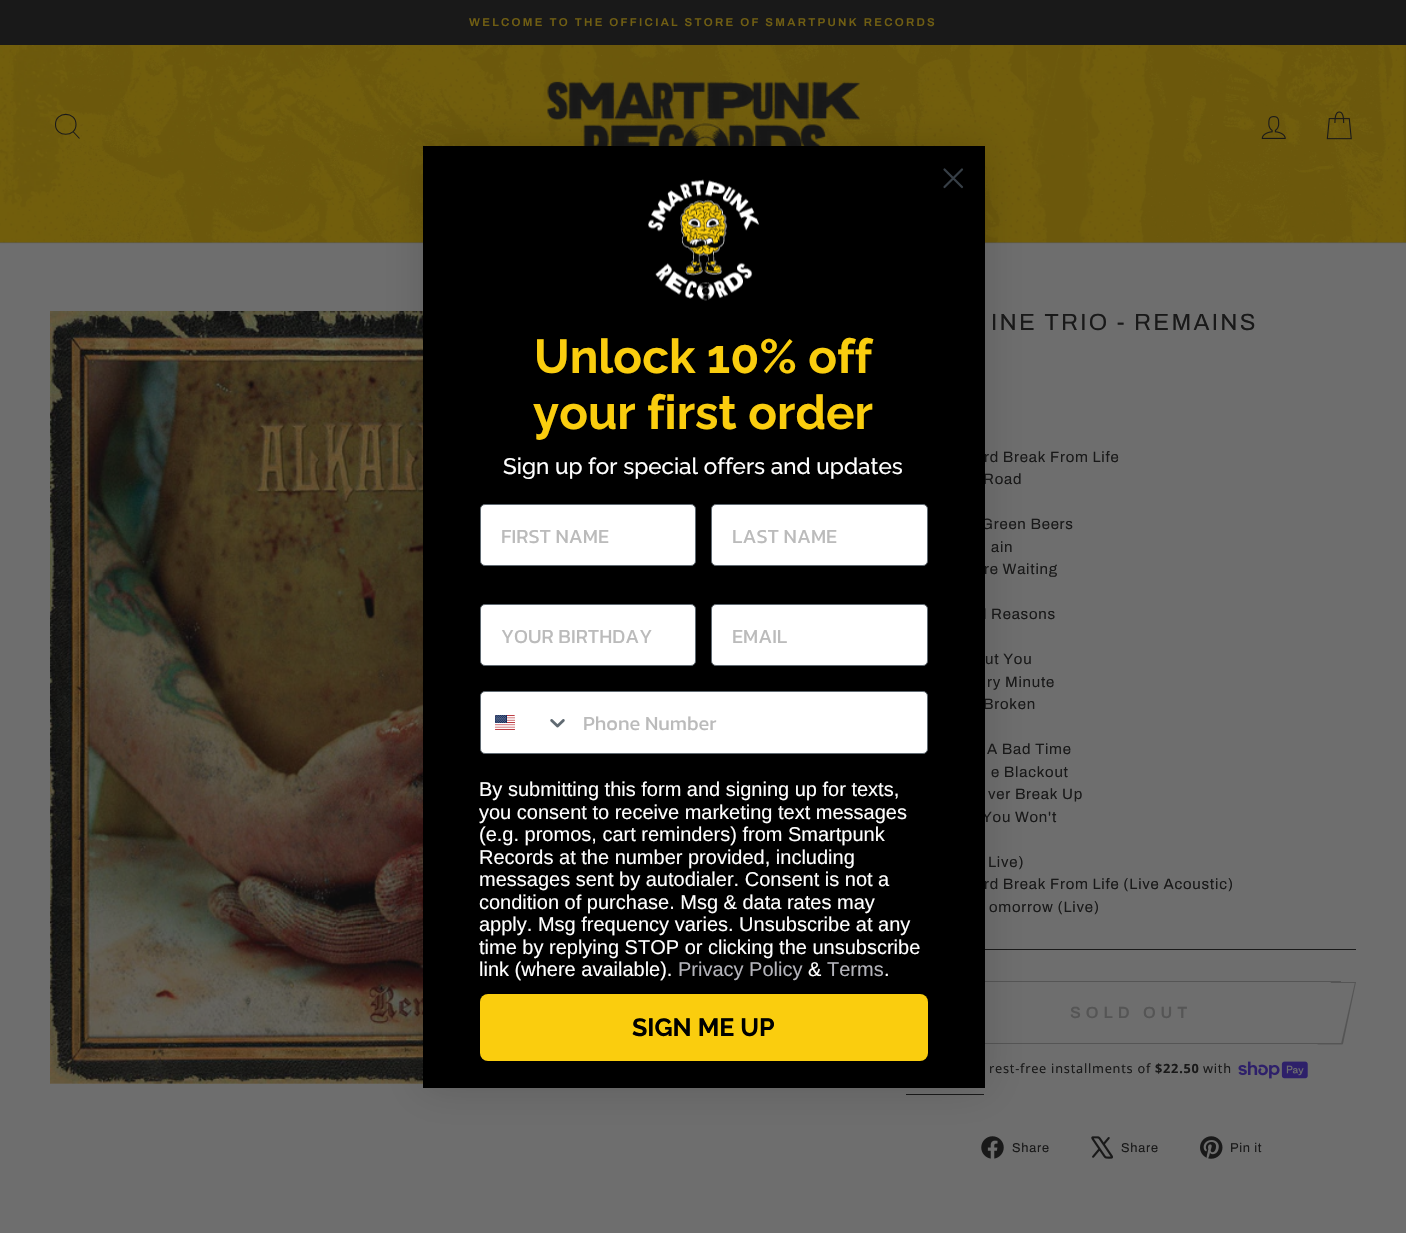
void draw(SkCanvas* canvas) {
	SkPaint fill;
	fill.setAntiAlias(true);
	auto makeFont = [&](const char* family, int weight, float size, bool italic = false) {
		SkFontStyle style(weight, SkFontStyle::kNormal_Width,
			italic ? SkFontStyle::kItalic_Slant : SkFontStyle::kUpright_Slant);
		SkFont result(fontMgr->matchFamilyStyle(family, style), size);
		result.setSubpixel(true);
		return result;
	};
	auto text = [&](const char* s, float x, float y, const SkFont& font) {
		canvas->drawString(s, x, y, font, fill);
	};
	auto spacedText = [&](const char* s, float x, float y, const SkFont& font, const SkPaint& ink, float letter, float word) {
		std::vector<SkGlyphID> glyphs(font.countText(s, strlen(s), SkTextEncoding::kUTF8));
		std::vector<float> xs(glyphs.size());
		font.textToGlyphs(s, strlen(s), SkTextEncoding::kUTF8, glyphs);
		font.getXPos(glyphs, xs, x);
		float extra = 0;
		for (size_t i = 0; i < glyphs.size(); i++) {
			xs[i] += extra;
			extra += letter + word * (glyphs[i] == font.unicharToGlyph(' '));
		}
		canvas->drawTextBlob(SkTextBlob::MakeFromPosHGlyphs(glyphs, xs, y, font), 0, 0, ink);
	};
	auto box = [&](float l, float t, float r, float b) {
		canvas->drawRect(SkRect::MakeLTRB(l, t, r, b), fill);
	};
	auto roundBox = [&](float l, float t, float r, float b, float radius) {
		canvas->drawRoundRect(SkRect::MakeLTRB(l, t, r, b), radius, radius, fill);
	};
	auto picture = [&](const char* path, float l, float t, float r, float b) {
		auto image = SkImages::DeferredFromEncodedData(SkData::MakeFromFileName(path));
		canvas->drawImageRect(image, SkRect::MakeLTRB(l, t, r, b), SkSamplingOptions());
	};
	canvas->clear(0xFF6E6E6E);
	fill.setColor(0xFF191919);
	box(0, 0, 1406, 45);
	fill.setColor(0x330C0C0C);
	fill.setMaskFilter(SkMaskFilter::MakeBlur(kNormal_SkBlurStyle, 0.5f));
	canvas->drawRect(SkRect::MakeLTRB(0, 45, 1406, 243), fill);
	fill.setMaskFilter(nullptr);
	picture("image0.png", 0, 45, 1406, 243);
	fill.setStyle(SkPaint::kStroke_Style);
	fill.setStrokeWidth(1.1f);
	fill.setColor(0xFF191919);
	canvas->drawPath(SkPathBuilder().moveTo(76, 124.5f).cubicTo(76, 137.5f, 55.5f, 137.5f, 55.5f, 124.5f).cubicTo(55.5f, 111, 76, 111, 76, 124.5f).close().moveTo(79.5f, 138.5f).lineTo(73, 131.5f).detach(), fill);
	picture("image1.png", 547, 81, 860, 146);
	picture("image2.png", 1261, 116, 1286, 139);
	picture("image3.png", 1326, 111, 1352, 140);
	picture("image4.png", 50, 311, 423, 1084);
	fill.setStyle(SkPaint::kFill_Style);
	box(985, 949, 1356, 950);
	fill.setColor(0xFF555555);
	box(985, 981, 1341, 982);
	box(985, 1043, 1318, 1044);
	canvas->drawPath(SkPathBuilder().moveTo(1331, 982).lineTo(1356, 982).lineTo(1355.5f, 983).lineTo(1330.5f, 983).close().detach(), fill);
	canvas->drawPath(SkPathBuilder().moveTo(1355, 982).lineTo(1356, 982).lineTo(1343, 1044).lineTo(1341, 1044).close().detach(), fill);
	canvas->drawPath(SkPathBuilder().moveTo(1318, 1043).lineTo(1343, 1043).lineTo(1342.5f, 1044.5f).lineTo(1317.5f, 1044.5f).close().detach(), fill);
	picture("image5.png", 1238, 1061, 1308, 1079);
	fill.setColor(0xFF191919);
	box(906, 1094, 984, 1095);
	picture("image6.png", 981, 1136, 1004, 1159);
	picture("image7.png", 1091, 1136, 1113, 1159);
	picture("image8.png", 1200, 1136, 1223, 1159);
	fill.setColor(0x26000000);
	fill.setMaskFilter(SkMaskFilter::MakeBlur(kNormal_SkBlurStyle, 19));
	canvas->drawRect(SkRect::MakeLTRB(423, 146, 985, 1088), fill);
	fill.setMaskFilter(nullptr);
	auto font1 = makeFont("Archivo", 600, 11.45f);
	fill.setColor(0xFF705E12);
	spacedText("WELCOME TO THE OFFICIAL STORE OF SMARTPUNK RECORDS", 469, 26, font1, fill, 2.3f, 0);
	auto font2 = makeFont("Archivo", 400, 23.4f);
	fill.setColor(0xFF191919);
	spacedText("INE TRIO - REMAINS", 991, 330, font2, fill, 2.3f, 0);
	auto font3 = makeFont("Archivo", 400, 15);
	spacedText("rd Break From Life", 984, 462, font3, fill, 0.75f, 0);
	spacedText("Road", 983, 484, font3, fill, 0.75f, 0);
	spacedText("Green Beers", 981, 529, font3, fill, 0.75f, 0);
	spacedText("ain", 991, 552, font3, fill, 0.75f, 0);
	spacedText("re Waiting", 984, 574, font3, fill, 0.75f, 0);
	spacedText("l Reasons", 983, 619, font3, fill, 0.75f, 0);
	spacedText("ut You", 985, 664, font3, fill, 0.75f, 0);
	spacedText("ry Minute", 987, 687, font3, fill, 0.75f, 0);
	spacedText("Broken", 983, 709, font3, fill, 0.75f, 0);
	spacedText("A Bad Time", 987, 754, font3, fill, 0.75f, 0);
	spacedText("e Blackout", 991, 777, font3, fill, 0.75f, 0);
	spacedText("ver Break Up", 988, 799, font3, fill, 0.75f, 0);
	spacedText("You Won't", 982, 822, font3, fill, 0.75f, 0);
	spacedText("Live)", 988, 867, font3, fill, 0.75f, 0);
	spacedText("rd Break From Life (Live Acoustic)", 984, 889, font3, fill, 0.75f, 0);
	spacedText("omorrow (Live)", 989, 912, font3, fill, 0.75f, 0);
	auto font4 = makeFont("Archivo", 600, 16.25f);
	fill.setColor(0xFF555555);
	spacedText("SOLD OUT", 1070, 1018, font4, fill, 5, 0);
	auto font5 = makeFont("Noto Sans", 400, 12.75f);
	fill.setColor(0xFF191919);
	spacedText("rest-free installments of", 989, 1073, font5, fill, 0.75f, 0);
	auto font6 = makeFont("Noto Sans", 700, 12.75f);
	spacedText("$22.50", 1155, 1073, font6, fill, 0.75f, 0);
	spacedText("with", 1203, 1073, font5, fill, 0.75f, 0);
	auto font7 = makeFont("Archivo", 400, 12.75f);
	spacedText("Share", 1012, 1152, font7, fill, 0.75f, 0);
	spacedText("Share", 1121, 1152, font7, fill, 0.75f, 0);
	spacedText("Pin it", 1230, 1152, font7, fill, 0.75f, 0);
	fill.setColor(0xFF000000);
	box(423, 146, 985, 1088);
	fill.setStyle(SkPaint::kStroke_Style);
	fill.setStrokeWidth(2.2f);
	fill.setStrokeCap(SkPaint::kRound_Cap);
	fill.setStrokeJoin(SkPaint::kRound_Join);
	fill.setColor(0xFF373F47);
	canvas->drawPath(SkPathBuilder().moveTo(944.5f, 169.5f).lineTo(962, 187).moveTo(944.5f, 187).lineTo(962, 169.5f).close().detach(), fill);
	picture("image9.png", 648, 179, 760, 301);
	auto font8 = makeFont("Raleway", 700, 47.5f);
	fill.setStyle(SkPaint::kFill_Style);
	fill.setColor(0xFFFACD0E);
	text("Unlock 10% off", 534, 373, font8);
	text("your first order", 533, 429, font8);
	auto font9 = makeFont("Raleway", 500, 22.5f);
	fill.setColor(0xFFFFFFFF);
	text("Sign up for special offers and updates", 503, 474, font9);
	canvas->drawRoundRect(SkRect::MakeLTRB(480.5f, 504.5f, 695.5f, 565.5f), 4.5f, 4.5f, fill);
	fill.setStyle(SkPaint::kStroke_Style);
	fill.setStrokeWidth(1);
	fill.setStrokeCap(SkPaint::kButt_Cap);
	fill.setStrokeJoin(SkPaint::kMiter_Join);
	fill.setColor(0xFF606A72);
	canvas->drawRoundRect(SkRect::MakeLTRB(480.5f, 504.5f, 695.5f, 565.5f), 4.5f, 4.5f, fill);
	auto font10 = makeFont("Kanit", 400, 20);
	fill.setStyle(SkPaint::kFill_Style);
	fill.setColor(0xFFBBBBBB);
	text("FIRST NAME", 501, 543, font10);
	fill.setColor(0xFFFFFFFF);
	canvas->drawRoundRect(SkRect::MakeLTRB(711.5f, 504.5f, 927.5f, 565.5f), 4.5f, 4.5f, fill);
	fill.setStyle(SkPaint::kStroke_Style);
	fill.setColor(0xFF606A72);
	canvas->drawRoundRect(SkRect::MakeLTRB(711.5f, 504.5f, 927.5f, 565.5f), 4.5f, 4.5f, fill);
	fill.setStyle(SkPaint::kFill_Style);
	fill.setColor(0xFFBBBBBB);
	text("LAST NAME", 732, 543, font10);
	fill.setColor(0xFFFFFFFF);
	canvas->drawRoundRect(SkRect::MakeLTRB(480.5f, 604.5f, 695.5f, 665.5f), 4.5f, 4.5f, fill);
	fill.setStyle(SkPaint::kStroke_Style);
	fill.setColor(0xFF606A72);
	canvas->drawRoundRect(SkRect::MakeLTRB(480.5f, 604.5f, 695.5f, 665.5f), 4.5f, 4.5f, fill);
	fill.setStyle(SkPaint::kFill_Style);
	fill.setColor(0xFFBBBBBB);
	text("YOUR BIRTHDAY", 501, 643, font10);
	fill.setColor(0xFFFFFFFF);
	canvas->drawRoundRect(SkRect::MakeLTRB(711.5f, 604.5f, 927.5f, 665.5f), 4.5f, 4.5f, fill);
	fill.setStyle(SkPaint::kStroke_Style);
	fill.setColor(0xFF606A72);
	canvas->drawRoundRect(SkRect::MakeLTRB(711.5f, 604.5f, 927.5f, 665.5f), 4.5f, 4.5f, fill);
	fill.setStyle(SkPaint::kFill_Style);
	fill.setColor(0xFFBBBBBB);
	text("EMAIL", 732, 643, font10);
	fill.setColor(0xFFFFFFFF);
	canvas->drawRoundRect(SkRect::MakeLTRB(480.5f, 691.5f, 927.5f, 753.5f), 4.5f, 4.5f, fill);
	fill.setStyle(SkPaint::kStroke_Style);
	fill.setColor(0xFF606A72);
	canvas->drawRoundRect(SkRect::MakeLTRB(480.5f, 691.5f, 927.5f, 753.5f), 4.5f, 4.5f, fill);
	picture("image10.png", 495, 715, 515, 730);
	picture("image11.png", 550, 719, 565, 728);
	fill.setStyle(SkPaint::kFill_Style);
	fill.setColor(0xFFBBBBBB);
	text("Phone Number", 583, 730, font10);
	auto font11 = makeFont("Liberation Sans", 400, 20);
	fill.setColor(0xFFFFFFFF);
	text("By submitting this form and signing up for texts,", 479, 796, font11);
	text("you consent to receive marketing text messages", 479, 819, font11);
	text("(e.g. promos, cart reminders) from Smartpunk", 479, 841, font11);
	text("Records at the number provided, including", 479, 864, font11);
	text("messages sent by autodialer. Consent is not a", 479, 886, font11);
	text("condition of purchase. Msg & data rates may", 479, 909, font11);
	text("apply. Msg frequency varies. Unsubscribe at any", 479, 931, font11);
	text("time by replying STOP or clicking the unsubscribe", 479, 954, font11);
	text("link (where available).", 479, 976, font11);
	fill.setColor(0xFFB3B3BA);
	text("Privacy Policy", 678, 976, font11);
	fill.setColor(0xFFFFFFFF);
	text("&", 808, 976, font11);
	fill.setColor(0xFFB3B3BA);
	text("Terms", 827, 976, font11);
	fill.setColor(0xFFFFFFFF);
	text(".", 884, 976, font11);
	fill.setColor(0xFFFACD0E);
	roundBox(480, 994, 928, 1061, 8);
	auto font12 = makeFont("Raleway", 700, 25);
	fill.setColor(0xFF000000);
	text("SIGN ME UP", 632, 1036, font12);
}
